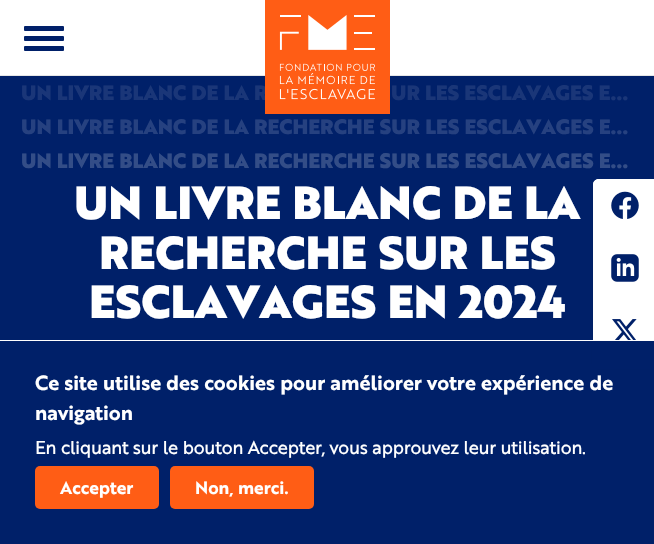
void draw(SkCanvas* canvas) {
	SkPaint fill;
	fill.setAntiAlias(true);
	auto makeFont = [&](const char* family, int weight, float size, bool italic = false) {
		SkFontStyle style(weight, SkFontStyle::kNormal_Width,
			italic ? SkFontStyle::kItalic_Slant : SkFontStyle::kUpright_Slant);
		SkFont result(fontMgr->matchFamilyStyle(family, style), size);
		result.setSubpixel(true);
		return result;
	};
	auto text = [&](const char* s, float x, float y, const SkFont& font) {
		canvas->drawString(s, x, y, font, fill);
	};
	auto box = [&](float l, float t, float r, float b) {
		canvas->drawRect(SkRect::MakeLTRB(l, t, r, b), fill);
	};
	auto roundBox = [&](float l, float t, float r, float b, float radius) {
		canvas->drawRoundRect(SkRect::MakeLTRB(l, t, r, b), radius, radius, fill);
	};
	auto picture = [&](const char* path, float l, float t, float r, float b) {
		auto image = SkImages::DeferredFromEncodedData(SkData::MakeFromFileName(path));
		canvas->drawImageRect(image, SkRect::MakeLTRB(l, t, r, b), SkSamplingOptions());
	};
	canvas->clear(0xFF002069);
	fill.setColor(0xFFFFFFFF);
	box(0, 0, 654, 75);
	fill.setColor(0xFFE6E6E6);
	box(0, 75, 654, 76);
	fill.setColor(0xFF002069);
	roundBox(24, 36, 64, 41, 1);
	roundBox(24, 26, 64, 31, 1);
	roundBox(24, 46, 64, 51, 1);
	fill.setColor(0x26000000);
	fill.setMaskFilter(SkMaskFilter::MakeBlur(kNormal_SkBlurStyle, 1));
	canvas->drawRoundRect(SkRect::MakeLTRB(593, 180, 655, 368), 6, 6, fill);
	fill.setMaskFilter(nullptr);
	fill.setColor(0xFFFFFFFF);
	canvas->drawPath(SkPathBuilder().moveTo(599, 179).lineTo(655, 179).lineTo(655, 366).lineTo(599, 366).cubicTo(595.5f, 366, 593, 363.5f, 593, 360).lineTo(593, 185).cubicTo(593, 181.5f, 595.5f, 179, 599, 179).close().detach(), fill);
	canvas->drawPath(SkPathBuilder().moveTo(599, 179).lineTo(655, 179).lineTo(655, 241).lineTo(593, 241).lineTo(593, 185).cubicTo(593, 181.5f, 595.5f, 179, 599, 179).close().detach(), fill);
	picture("image1.png", 611, 191, 639, 219);
	picture("image2.png", 611, 254, 639, 282);
	picture("image3.png", 612, 319, 637, 340);
	fill.setColor(0xFF002069);
	box(592, 341, 654, 369);
	fill.setColor(0xFFFFFFFF);
	box(0, 340, 593, 341);
	fill.setColor(0xFFFF5D15);
	roundBox(35, 466, 159, 509, 5);
	roundBox(170, 466, 314, 509, 5);
	auto font1 = makeFont("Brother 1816", 900, 20.25f);
	fill.setColor(0xFF1A3678);
	text("UN LIVRE BLANC DE LA R", 21, 100, font1);
	picture("image0.png", 265, 0, 390, 114);
	text("UR LES ESCLAVAGES E…", 391, 100, font1);
	fill.setColor(0xFF264180);
	text("UN LIVRE BLANC DE LA RECHERCHE SUR LES ESCLAVAGES E…", 21, 134, font1);
	fill.setColor(0xFF334D87);
	text("UN LIVRE BLANC DE LA RECHERCHE SUR LES ESCLAVAGES E…", 21, 168, font1);
	auto font2 = makeFont("Brother 1816", 900, 45);
	fill.setColor(0xFFFFFFFF);
	text("UN LIVRE BLANC DE LA", 74, 219, font2);
	text("RECHERCHE SUR LES", 99, 269, font2);
	text("ESCLAVAGES EN 2024", 89, 318, font2);
	auto font3 = makeFont("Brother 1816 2", 700, 20);
	text("Ce site utilise des cookies pour améliorer votre expérience de", 35, 390, font3);
	text("navigation", 35, 420, font3);
	auto font4 = makeFont("Brother 1816", 700, 17.5f);
	text("En cliquant sur le bouton Accepter, vous approuvez leur utilisation.", 35, 454, font4);
	auto font5 = makeFont("Brother 1816 2", 700, 17.5f);
	text("Accepter", 60, 494, font5);
	text("Non, merci.", 195, 494, font5);
}
